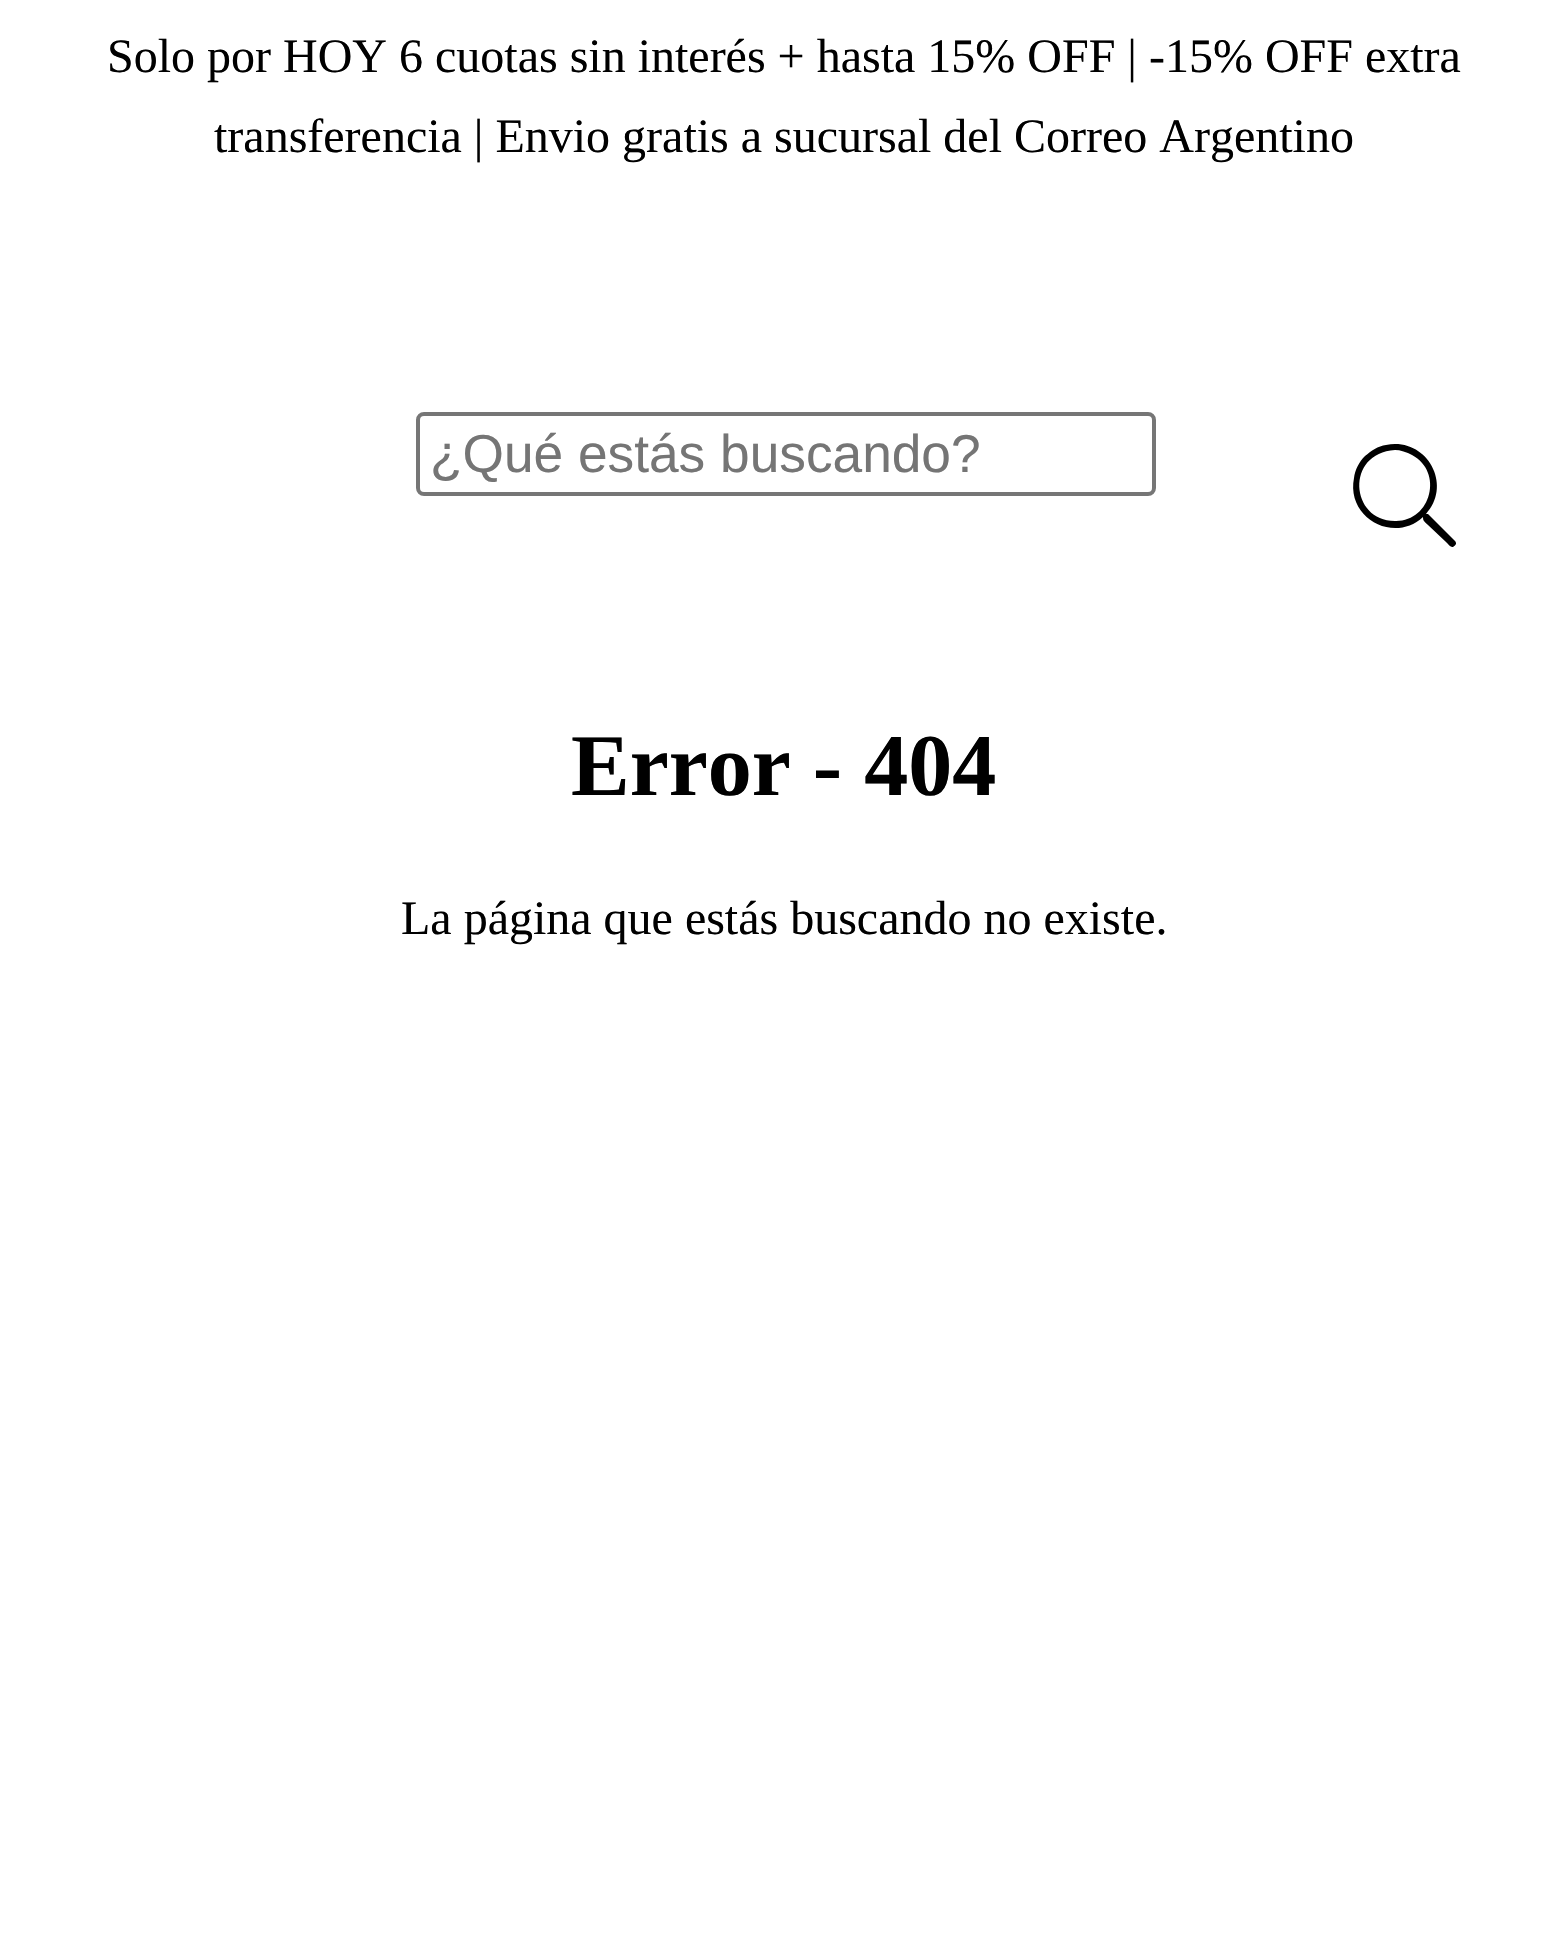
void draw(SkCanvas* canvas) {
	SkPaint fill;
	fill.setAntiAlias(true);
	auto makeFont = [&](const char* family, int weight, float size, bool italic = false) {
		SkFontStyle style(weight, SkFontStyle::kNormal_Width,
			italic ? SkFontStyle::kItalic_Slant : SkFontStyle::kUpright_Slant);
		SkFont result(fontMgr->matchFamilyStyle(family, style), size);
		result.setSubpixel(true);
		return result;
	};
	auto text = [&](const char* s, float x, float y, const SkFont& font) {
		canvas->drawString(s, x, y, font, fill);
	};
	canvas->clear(0xFFFFFFFF);
	fill.setStyle(SkPaint::kStroke_Style);
	fill.setStrokeWidth(4);
	fill.setColor(0xFF767676);
	canvas->drawRoundRect(SkRect::MakeLTRB(418, 414, 1154, 494), 6, 6, fill);
	fill.setStyle(SkPaint::kFill_Style);
	fill.setColor(0xFF000000);
	canvas->drawPath(SkPathBuilder().moveTo(1455, 541).lineTo(1429, 515).lineTo(1428, 514).lineTo(1426, 514).cubicTo(1453, 485, 1427, 437, 1386, 445).cubicTo(1378, 446, 1371, 451, 1365, 456).cubicTo(1359, 462, 1355, 470, 1354, 478).cubicTo(1346, 518, 1394, 544, 1423, 517).cubicTo(1423, 521, 1424, 521, 1428, 525).lineTo(1446, 542).cubicTo(1450, 546, 1452, 550, 1456, 544).cubicTo(1456, 543, 1456, 542, 1455, 541).close().moveTo(1395, 521).cubicTo(1350, 521, 1345, 453, 1395, 450).cubicTo(1400, 450, 1407, 452, 1412, 455).cubicTo(1444, 472, 1431, 522, 1395, 521).close().detach(), fill);
	auto font1 = makeFont("Liberation Serif", 400, 48);
	text("Solo por HOY 6 cuotas sin interés + hasta 15% OFF | -15% OFF extra", 107, 72, font1);
	text("transferencia | Envio gratis a sucursal del Correo Argentino", 214, 152, font1);
	auto font2 = makeFont("Liberation Sans", 400, 53.25f);
	fill.setColor(0xFF757575);
	text("¿Qué estás buscando?", 430, 472, font2);
	auto font3 = makeFont("Liberation Serif", 700, 88);
	fill.setColor(0xFF000000);
	text("Error - 404", 571, 795, font3);
	text("La página que estás buscando no existe.", 401, 934, font1);
}
